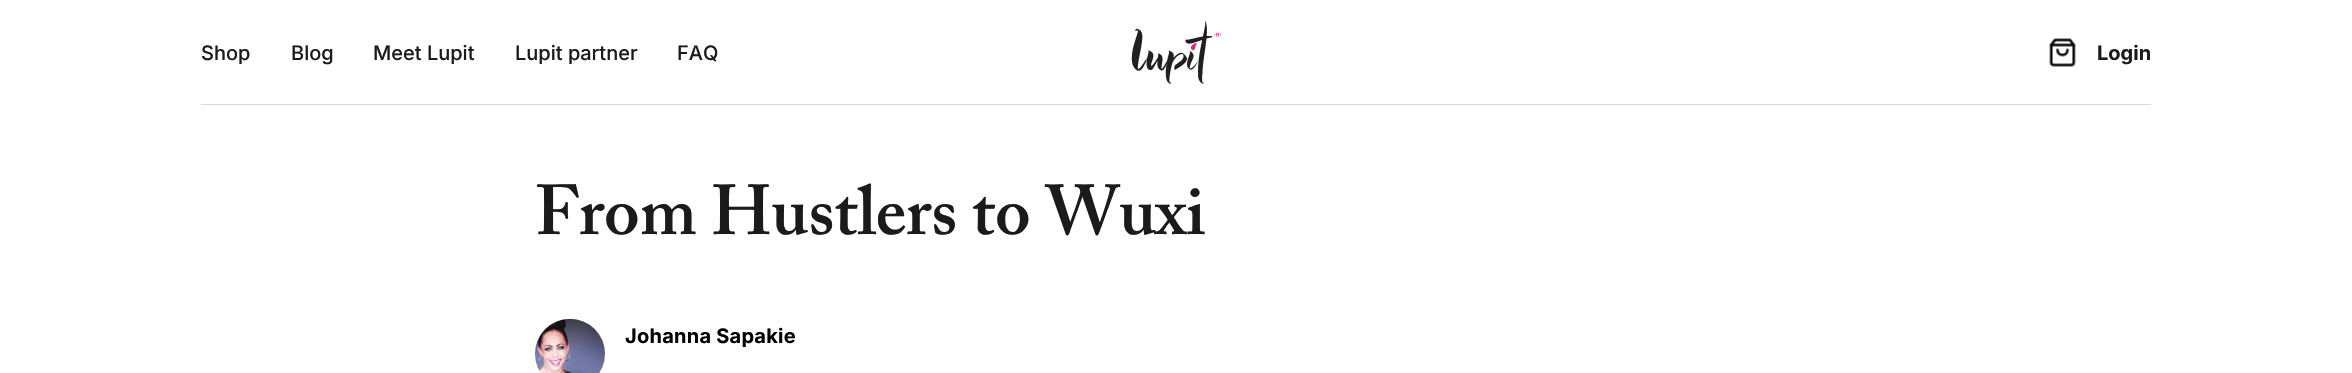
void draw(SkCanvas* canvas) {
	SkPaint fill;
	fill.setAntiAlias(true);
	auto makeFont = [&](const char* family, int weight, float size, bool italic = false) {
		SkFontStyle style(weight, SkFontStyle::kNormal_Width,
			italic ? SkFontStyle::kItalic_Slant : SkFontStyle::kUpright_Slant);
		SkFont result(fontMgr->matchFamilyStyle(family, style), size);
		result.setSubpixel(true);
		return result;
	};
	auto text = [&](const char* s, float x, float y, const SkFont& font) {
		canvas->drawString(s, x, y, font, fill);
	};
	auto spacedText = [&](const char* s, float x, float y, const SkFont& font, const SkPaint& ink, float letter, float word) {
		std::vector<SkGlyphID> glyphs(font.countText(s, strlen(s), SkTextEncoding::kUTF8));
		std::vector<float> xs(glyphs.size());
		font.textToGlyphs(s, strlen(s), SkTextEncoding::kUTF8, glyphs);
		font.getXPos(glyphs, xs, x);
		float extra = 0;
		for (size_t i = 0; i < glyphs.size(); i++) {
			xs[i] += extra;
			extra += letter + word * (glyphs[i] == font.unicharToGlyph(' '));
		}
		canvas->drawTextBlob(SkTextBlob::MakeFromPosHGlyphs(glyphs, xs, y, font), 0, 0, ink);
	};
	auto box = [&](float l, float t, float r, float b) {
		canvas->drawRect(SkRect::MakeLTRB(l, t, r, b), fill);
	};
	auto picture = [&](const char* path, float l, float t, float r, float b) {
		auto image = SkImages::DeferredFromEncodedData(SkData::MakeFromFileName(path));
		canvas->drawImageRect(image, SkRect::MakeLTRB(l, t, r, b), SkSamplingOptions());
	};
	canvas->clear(0xFFFFFFFF);
	picture("image0.png", 1131, 21, 1221, 84);
	picture("image1.png", 2049, 38, 2076, 67);
	fill.setColor(0xFFD8D8D8);
	box(201, 104, 2151, 105);
	picture("image2.png", 535, 318, 605, 373);
	auto font1 = makeFont("Inter", 500, 20);
	fill.setColor(0xFF1B1B1B);
	text("Shop", 201, 60, font1);
	text("Blog", 291, 60, font1);
	text("Meet Lupit", 373, 60, font1);
	text("Lupit partner", 515, 60, font1);
	text("FAQ", 677, 60, font1);
	auto font2 = makeFont("Inter", 700, 20);
	text("Login", 2097, 60, font2);
	auto font3 = makeFont("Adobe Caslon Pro", 600, 70);
	text("From Hustlers to Wuxi", 535, 234, font3);
	fill.setColor(0xFF000000);
	spacedText("Johanna Sapakie", 625, 343, font2, fill, 0.25f, 0);
}
